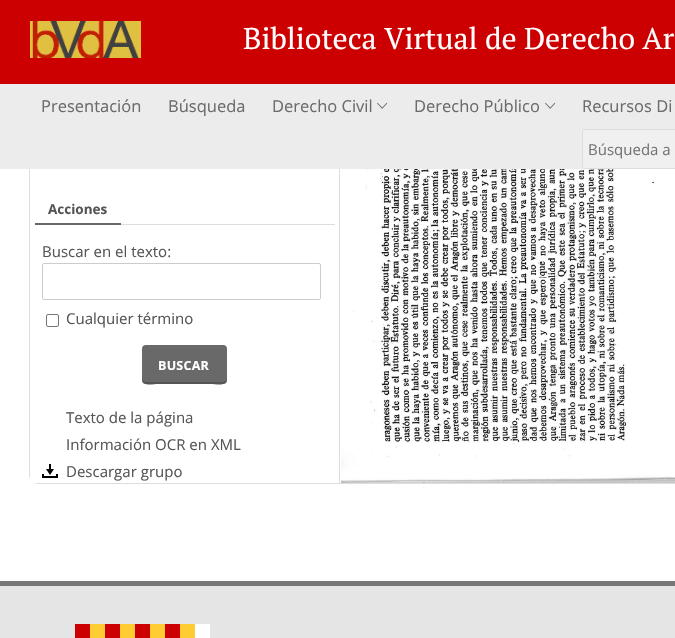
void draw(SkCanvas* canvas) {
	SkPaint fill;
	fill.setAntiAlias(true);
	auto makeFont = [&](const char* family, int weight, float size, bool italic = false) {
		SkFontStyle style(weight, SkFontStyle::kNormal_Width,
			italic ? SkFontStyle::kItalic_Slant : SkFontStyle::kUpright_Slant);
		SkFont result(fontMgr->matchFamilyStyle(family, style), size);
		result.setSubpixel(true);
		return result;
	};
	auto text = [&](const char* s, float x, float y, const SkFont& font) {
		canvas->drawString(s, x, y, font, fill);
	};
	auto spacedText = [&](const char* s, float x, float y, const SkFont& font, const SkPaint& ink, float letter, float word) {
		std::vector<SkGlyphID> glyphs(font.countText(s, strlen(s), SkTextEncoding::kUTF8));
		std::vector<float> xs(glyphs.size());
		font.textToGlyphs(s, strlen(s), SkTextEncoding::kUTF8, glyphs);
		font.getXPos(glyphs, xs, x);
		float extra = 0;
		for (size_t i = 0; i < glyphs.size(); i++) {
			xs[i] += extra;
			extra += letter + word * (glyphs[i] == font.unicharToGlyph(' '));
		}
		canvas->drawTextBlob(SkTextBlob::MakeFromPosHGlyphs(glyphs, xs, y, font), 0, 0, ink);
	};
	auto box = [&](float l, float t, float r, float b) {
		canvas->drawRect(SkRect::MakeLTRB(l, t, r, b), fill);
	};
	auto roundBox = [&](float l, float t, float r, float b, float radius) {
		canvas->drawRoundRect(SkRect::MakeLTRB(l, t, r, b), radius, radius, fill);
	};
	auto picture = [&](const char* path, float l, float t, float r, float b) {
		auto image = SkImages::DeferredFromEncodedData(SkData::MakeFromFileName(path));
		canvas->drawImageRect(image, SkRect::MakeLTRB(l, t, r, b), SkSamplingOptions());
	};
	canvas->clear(0xFFFFFFFF);
	fill.setStyle(SkPaint::kStroke_Style);
	fill.setStrokeWidth(1);
	fill.setColor(0xFFDDDDDD);
	canvas->drawRoundRect(SkRect::MakeLTRB(29.5f, -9.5f, 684.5f, 483.5f), 8.5f, 8.5f, fill);
	fill.setStyle(SkPaint::kFill_Style);
	fill.setColor(0xFFCC0000);
	box(0, 0, 675, 84);
	picture("image0.png", 30, 21, 141, 58);
	fill.setColor(0xFFECECEC);
	box(0, 84, 675, 169);
	picture("image1.png", 377, 102, 388, 109);
	picture("image1.png", 545, 102, 556, 109);
	fill.setColor(0xFFF0F0F0);
	canvas->drawRoundRect(SkRect::MakeLTRB(582.5f, 129.5f, 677.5f, 168.5f), 1.5f, 1.5f, fill);
	fill.setStyle(SkPaint::kStroke_Style);
	fill.setColor(0xFFDDDDDD);
	canvas->drawRoundRect(SkRect::MakeLTRB(582.5f, 129.5f, 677.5f, 168.5f), 1.5f, 1.5f, fill);
	fill.setStyle(SkPaint::kFill_Style);
	fill.setColor(0xFFFFFFFF);
	box(30, 476, 37, 483);
	fill.setColor(0xFFDDDDDD);
	box(339, 169, 340, 483);
	box(121, 224, 335, 225);
	fill.setColor(0xFF696969);
	box(35, 223, 121, 225);
	fill.setStyle(SkPaint::kStroke_Style);
	fill.setColor(0xFFCCCCCC);
	canvas->drawRoundRect(SkRect::MakeLTRB(42.5f, 263.5f, 320.5f, 299.5f), 1.5f, 1.5f, fill);
	fill.setColor(0xFF767676);
	canvas->drawRoundRect(SkRect::MakeLTRB(46.5f, 314.5f, 58.5f, 326.5f), 1.5f, 1.5f, fill);
	fill.setStyle(SkPaint::kFill_Style);
	fill.setColor(0xFF696969);
	roundBox(142, 345, 227, 384, 4);
	fill.setColor(0xFF555555);
	canvas->drawPath(SkPathBuilder().moveTo(142, 378).cubicTo(142, 387, 151, 384, 159, 384).lineTo(210, 384).cubicTo(218, 384, 227, 387, 227, 378).cubicTo(227, 380, 225, 382, 223, 382).lineTo(146, 382).cubicTo(144, 382, 142, 380, 142, 378).close().detach(), fill);
	picture("image2.png", 42, 464, 58, 478);
	picture("image3.png", 341, 169, 675, 483);
	fill.setColor(0xFFE5E5E5);
	box(0, 586, 675, 638);
	fill.setColor(0xFF777777);
	box(0, 581, 675, 586);
	picture("image4.png", 75, 624, 210, 638);
	auto font1 = makeFont("PT Serif", 400, 30);
	fill.setColor(0xFFFFFFFF);
	text("Biblioteca Virtual de Derecho Ar", 243, 49, font1);
	auto font2 = makeFont("Open Sans", 400, 16.5f);
	fill.setColor(0xFF6B6B6B);
	text("Presentación", 41, 112, font2);
	text("Búsqueda", 168, 112, font2);
	text("Derecho Civil", 272, 112, font2);
	text("Derecho Público", 414, 112, font2);
	text("Recursos Di", 582, 112, font2);
	auto font3 = makeFont("Open Sans", 400, 15);
	fill.setColor(0xFF757575);
	text("Búsqueda a", 588, 155, font3);
	auto font4 = makeFont("Open Sans", 700, 13.5f);
	fill.setColor(0xFF555555);
	text("Acciones", 48, 214, font4);
	text("Buscar en el texto:", 42, 257, font3);
	text("Cualquier término", 66, 324, font3);
	auto font5 = makeFont("Open Sans", 700, 12.5f);
	fill.setColor(0xFFFFFFFF);
	spacedText("BUSCAR", 158, 370, font5, fill, 0.25f, 0);
	fill.setColor(0xFF555555);
	text("Texto de la página", 66, 423, font3);
	text("Información OCR en XML", 66, 450, font3);
	text("Descargar grupo", 66, 477, font3);
}
